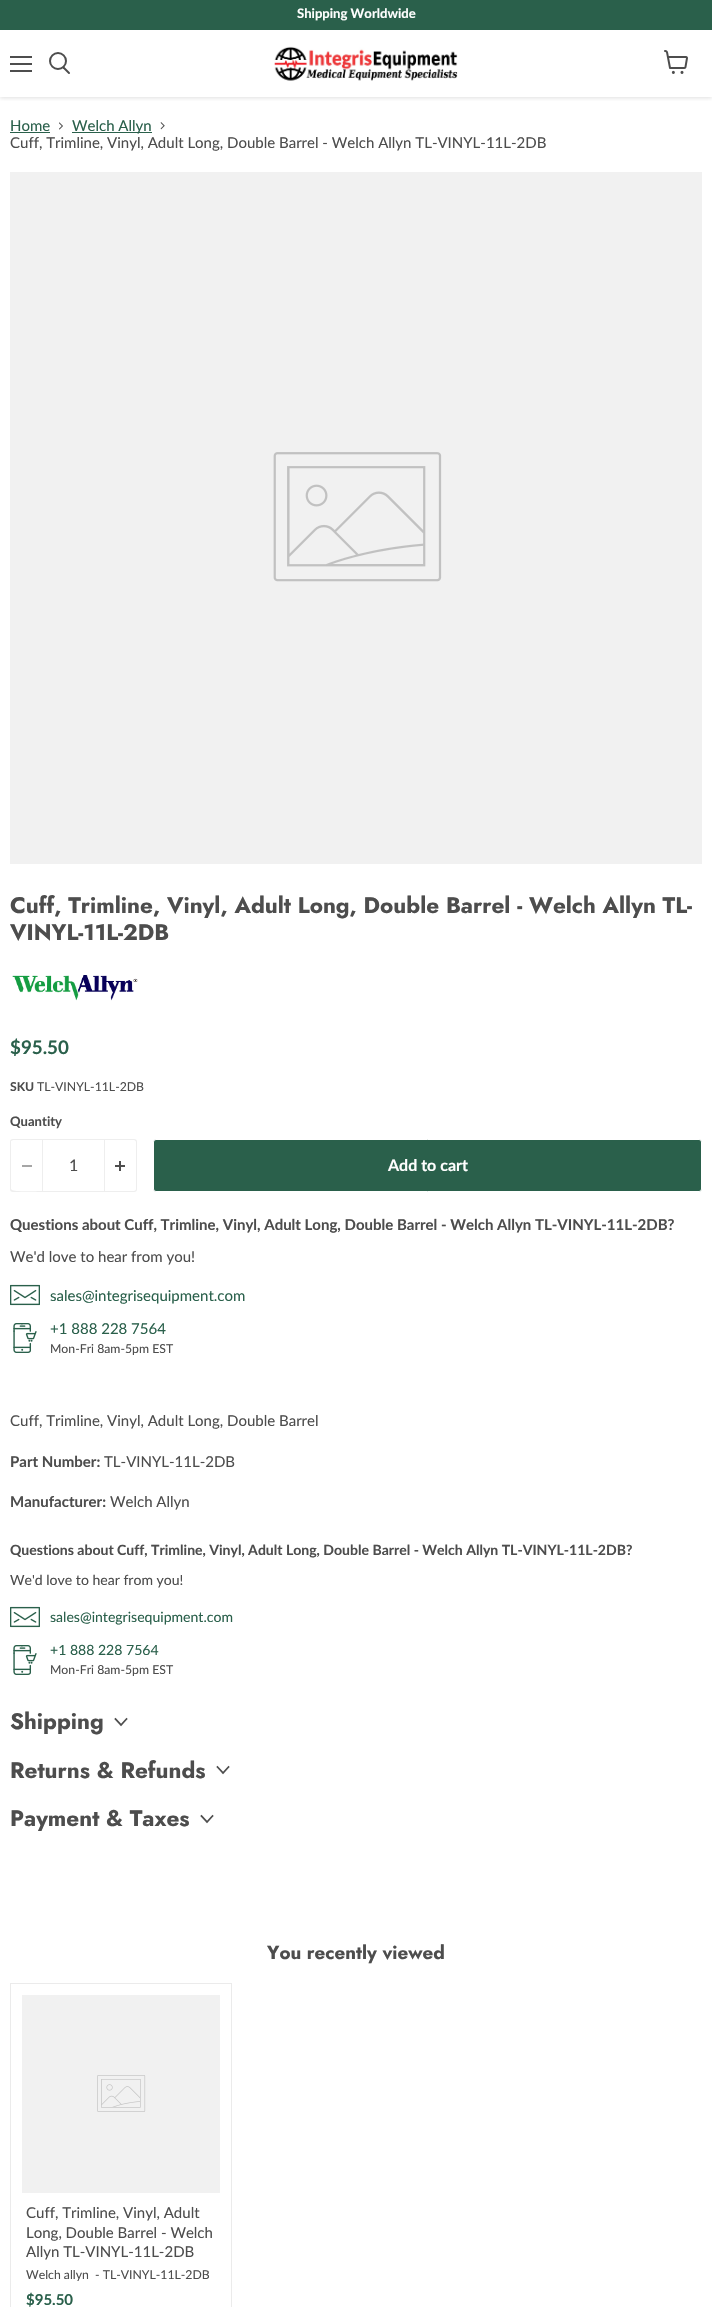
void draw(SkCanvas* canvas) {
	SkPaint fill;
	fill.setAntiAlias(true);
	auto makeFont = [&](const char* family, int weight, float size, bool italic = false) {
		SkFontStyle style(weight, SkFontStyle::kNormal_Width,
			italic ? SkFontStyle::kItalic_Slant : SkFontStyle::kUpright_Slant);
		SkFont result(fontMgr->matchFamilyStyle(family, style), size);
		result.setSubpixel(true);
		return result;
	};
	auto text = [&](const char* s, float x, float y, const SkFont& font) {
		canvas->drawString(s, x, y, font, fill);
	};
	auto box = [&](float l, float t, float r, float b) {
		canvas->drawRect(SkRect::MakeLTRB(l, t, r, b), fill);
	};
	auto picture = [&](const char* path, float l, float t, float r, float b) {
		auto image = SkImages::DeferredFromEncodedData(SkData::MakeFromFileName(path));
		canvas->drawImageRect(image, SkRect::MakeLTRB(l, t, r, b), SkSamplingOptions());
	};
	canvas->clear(0xFFFFFFFF);
	canvas->save();
	canvas->clipRect(SkRect::MakeLTRB(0, 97, 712, 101));
	fill.setColor(0x40808080);
	fill.setMaskFilter(SkMaskFilter::MakeBlur(kNormal_SkBlurStyle, 2));
	canvas->drawRect(SkRect::MakeLTRB(0, 31, 712, 98), fill);
	fill.setMaskFilter(nullptr);
	canvas->restore();
	fill.setColor(0xFF2A604B);
	box(0, 0, 712, 30);
	fill.setColor(0xFF4D4D4D);
	box(10, 56, 32, 58);
	box(10, 63, 32, 65);
	box(10, 70, 32, 72);
	fill.setStyle(SkPaint::kStroke_Style);
	fill.setStrokeWidth(2);
	fill.setStrokeCap(SkPaint::kRound_Cap);
	canvas->drawPath(SkPathBuilder().moveTo(69, 73).lineTo(63.5f, 67.5f).detach(), fill);
	fill.setStrokeCap(SkPaint::kButt_Cap);
	canvas->drawCircle(58, 61, 8, fill);
	picture("image0.png", 274, 46, 458, 81);
	picture("image1.png", 664, 50, 688, 74);
	fill.setStyle(SkPaint::kFill_Style);
	fill.setColor(0xFF2A604B);
	box(10, 132, 50, 133);
	picture("image2.png", 59, 122, 63, 130);
	box(72, 132, 152, 133);
	picture("image3.png", 160, 122, 165, 130);
	fill.setColor(0xFFF1F1F1);
	box(10, 172, 702, 864);
	picture("image4.png", 273, 452, 442, 582);
	picture("image5.png", 12, 975, 138, 1001);
	fill.setColor(0xFFEEEEEE);
	canvas->drawPath(SkPathBuilder(SkPathFillType::kEvenOdd).moveTo(13, 1139).lineTo(42, 1139).lineTo(42, 1192).lineTo(13, 1192).cubicTo(11, 1192, 10, 1191, 10, 1189).lineTo(10, 1142).cubicTo(10, 1140, 11, 1139, 13, 1139).close().moveTo(13, 1140).lineTo(42, 1140).lineTo(42, 1191).cubicTo(38, 1191, 13, 1192, 12, 1190).lineTo(11, 1189).lineTo(11, 1141).close().detach(), fill);
	fill.setColor(0xFFA6A6A6);
	box(22, 1165, 32, 1167);
	fill.setStyle(SkPaint::kStroke_Style);
	fill.setStrokeWidth(1);
	fill.setColor(0xFFEEEEEE);
	canvas->drawRect(SkRect::MakeLTRB(42.5f, 1139.5f, 104.5f, 1191.5f), fill);
	fill.setStyle(SkPaint::kFill_Style);
	canvas->drawPath(SkPathBuilder(SkPathFillType::kEvenOdd).moveTo(105, 1139).lineTo(134, 1139).cubicTo(136, 1139, 137, 1140, 137, 1142).lineTo(137, 1189).cubicTo(137, 1191, 136, 1192, 134, 1192).lineTo(105, 1192).close().moveTo(105, 1140).lineTo(134, 1140).cubicTo(135, 1140, 136, 1141, 136, 1142).lineTo(136, 1189).cubicTo(136, 1190, 135, 1191, 134, 1191).lineTo(105, 1191).close().detach(), fill);
	picture("image6.png", 115, 1161, 125, 1171);
	fill.setColor(0xFF2A604B);
	canvas->drawRoundRect(SkRect::MakeLTRB(153.5f, 1139.5f, 701.5f, 1191.5f), 2.5f, 2.5f, fill);
	fill.setStyle(SkPaint::kStroke_Style);
	fill.setColor(0xFFFFFFFF);
	canvas->drawRoundRect(SkRect::MakeLTRB(153.5f, 1139.5f, 701.5f, 1191.5f), 2.5f, 2.5f, fill);
	picture("image7.png", 10, 1284, 40, 1306);
	picture("image8.png", 13, 1323, 37, 1353);
	picture("image7.png", 10, 1606, 40, 1628);
	picture("image8.png", 13, 1645, 37, 1675);
	fill.setStrokeWidth(1.8f);
	fill.setStrokeCap(SkPaint::kSquare_Cap);
	fill.setColor(0xFF4D4D4D);
	canvas->drawPath(SkPathBuilder().moveTo(121, 1725).lineTo(126.5f, 1719).moveTo(121, 1725).lineTo(115.5f, 1719).detach(), fill);
	canvas->drawPath(SkPathBuilder().moveTo(223, 1773).lineTo(228.5f, 1767).moveTo(223, 1773).lineTo(217.5f, 1767).moveTo(207, 1822).lineTo(212.5f, 1816).moveTo(207, 1822).lineTo(201.5f, 1816).detach(), fill);
	fill.setStrokeWidth(1);
	fill.setStrokeCap(SkPaint::kButt_Cap);
	fill.setColor(0xFFEBEBEB);
	canvas->drawRect(SkRect::MakeLTRB(10.5f, 1983.5f, 231.5f, 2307.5f), fill);
	fill.setStyle(SkPaint::kFill_Style);
	fill.setColor(0xFFF1F1F1);
	box(22, 1995, 220, 2193);
	picture("image9.png", 97, 2075, 146, 2112);
	auto font1 = makeFont("Lato", 700, 13.1f);
	fill.setColor(0xFFFFFFFF);
	text("Shipping Worldwide", 297, 18, font1);
	auto font2 = makeFont("Lato", 400, 15);
	fill.setColor(0xFF2A604B);
	text("Home", 10, 131, font2);
	text("Welch Allyn", 72, 131, font2);
	fill.setColor(0xFF4D4D4D);
	text("Cuff, Trimline, Vinyl, Adult Long, Double Barrel - Welch Allyn TL-VINYL-11L-2DB", 10, 148, font2);
	auto font3 = makeFont("Jost", 700, 22.5f);
	text("Cuff, Trimline, Vinyl, Adult Long, Double Barrel - Welch Allyn TL-", 10, 913, font3);
	text("VINYL-11L-2DB", 10, 940, font3);
	auto font4 = makeFont("Lato", 700, 18.75f);
	fill.setColor(0xFF2A604B);
	text("$95.50", 10, 1054, font4);
	auto font5 = makeFont("Lato", 700, 12.25f);
	fill.setColor(0xFF4D4D4D);
	text("SKU", 10, 1091, font5);
	auto font6 = makeFont("Lato", 400, 12.25f);
	text("TL-VINYL-11L-2DB", 37, 1091, font6);
	text("Quantity", 10, 1126, font1);
	auto font7 = makeFont("Lato", 400, 16);
	text("1", 69, 1171, font7);
	auto font8 = makeFont("Lato", 700, 16);
	fill.setColor(0xFFFFFFFF);
	text("Add to cart", 388, 1171, font8);
	auto font9 = makeFont("Lato", 700, 15);
	fill.setColor(0xFF4D4D4D);
	text("Questions about Cuff, Trimline, Vinyl, Adult Long, Double Barrel - Welch Allyn TL-VINYL-11L-2DB?", 10, 1230, font9);
	text("We'd love to hear from you!", 10, 1262, font2);
	fill.setColor(0xFF2A604B);
	text("sales@integrisequipment.com", 50, 1301, font2);
	text("+1 888 228 7564", 50, 1334, font2);
	fill.setColor(0xFF4D4D4D);
	text("Mon-Fri 8am-5pm EST", 50, 1353, font6);
	text("Cuff, Trimline, Vinyl, Adult Long, Double Barrel", 10, 1426, font2);
	text("Part Number:", 10, 1467, font9);
	text("TL-VINYL-11L-2DB", 104, 1467, font2);
	text("Manufacturer:", 10, 1507, font9);
	text("Welch Allyn", 110, 1507, font2);
	auto font10 = makeFont("Lato", 700, 14.05f);
	text("Questions about Cuff, Trimline, Vinyl, Adult Long, Double Barrel - Welch Allyn TL-VINYL-11L-2DB?", 10, 1555, font10);
	auto font11 = makeFont("Lato", 400, 14.05f);
	text("We'd love to hear from you!", 10, 1585, font11);
	fill.setColor(0xFF2A604B);
	text("sales@integrisequipment.com", 50, 1622, font11);
	text("+1 888 228 7564", 50, 1655, font11);
	fill.setColor(0xFF4D4D4D);
	text("Mon-Fri 8am-5pm EST", 50, 1674, font6);
	text("Shipping", 10, 1729, font3);
	text("Returns & Refunds", 10, 1778, font3);
	text("Payment & Taxes", 10, 1826, font3);
	auto font12 = makeFont("Jost", 700, 18.75f);
	text("You recently viewed", 267, 1959, font12);
	text("Cuff, Trimline, Vinyl, Adult", 26, 2218, font2);
	text("Long, Double Barrel - Welch", 26, 2238, font2);
	text("Allyn TL-VINYL-11L-2DB", 26, 2257, font2);
	text("Welch allyn", 26, 2279, font6);
	text("- TL-VINYL-11L-2DB", 95, 2279, font6);
	fill.setColor(0xFF2A604B);
	text("$95.50", 26, 2305, font9);
}
